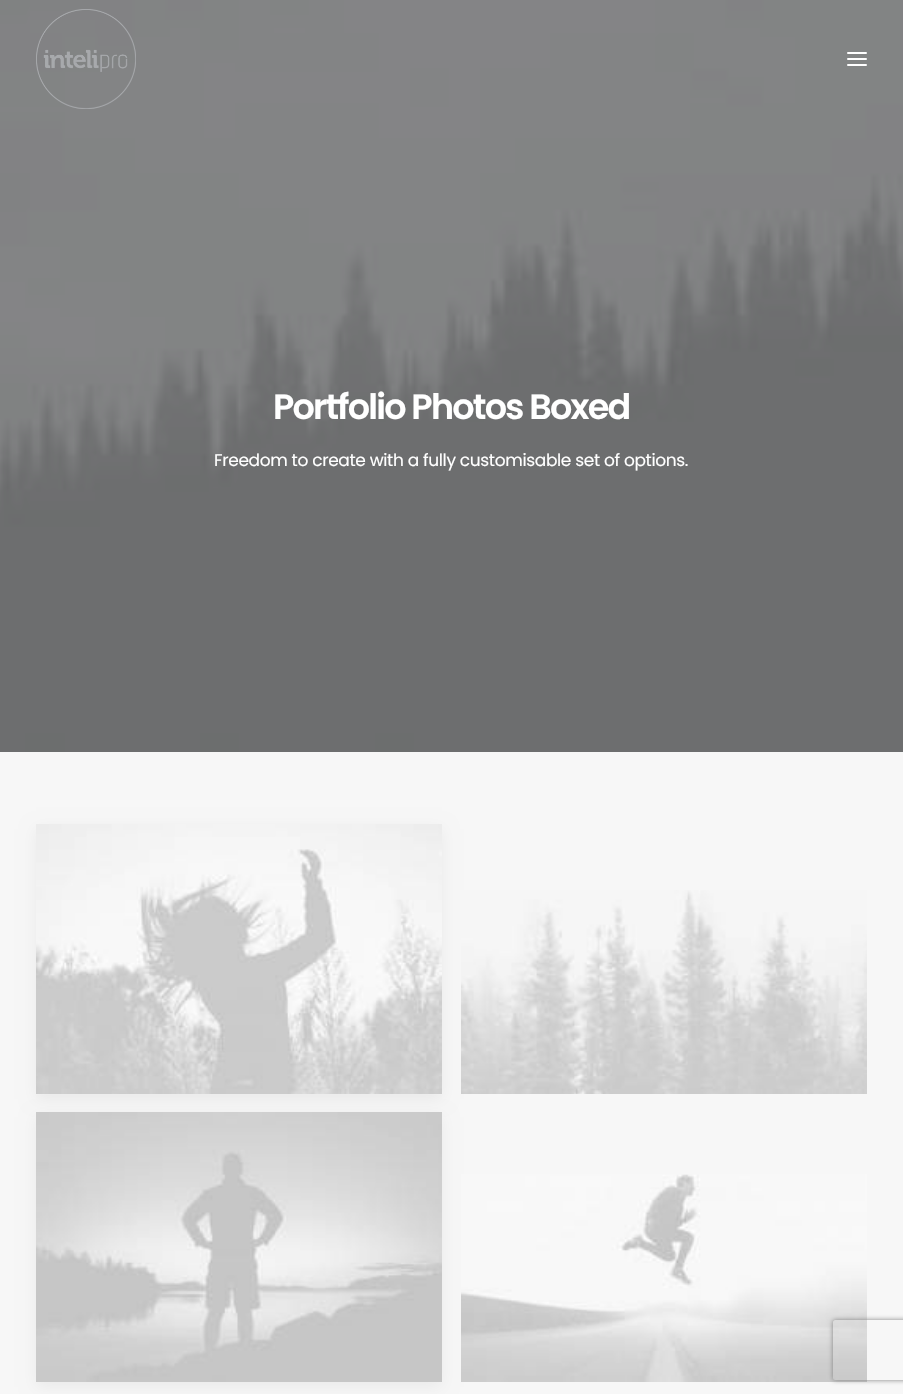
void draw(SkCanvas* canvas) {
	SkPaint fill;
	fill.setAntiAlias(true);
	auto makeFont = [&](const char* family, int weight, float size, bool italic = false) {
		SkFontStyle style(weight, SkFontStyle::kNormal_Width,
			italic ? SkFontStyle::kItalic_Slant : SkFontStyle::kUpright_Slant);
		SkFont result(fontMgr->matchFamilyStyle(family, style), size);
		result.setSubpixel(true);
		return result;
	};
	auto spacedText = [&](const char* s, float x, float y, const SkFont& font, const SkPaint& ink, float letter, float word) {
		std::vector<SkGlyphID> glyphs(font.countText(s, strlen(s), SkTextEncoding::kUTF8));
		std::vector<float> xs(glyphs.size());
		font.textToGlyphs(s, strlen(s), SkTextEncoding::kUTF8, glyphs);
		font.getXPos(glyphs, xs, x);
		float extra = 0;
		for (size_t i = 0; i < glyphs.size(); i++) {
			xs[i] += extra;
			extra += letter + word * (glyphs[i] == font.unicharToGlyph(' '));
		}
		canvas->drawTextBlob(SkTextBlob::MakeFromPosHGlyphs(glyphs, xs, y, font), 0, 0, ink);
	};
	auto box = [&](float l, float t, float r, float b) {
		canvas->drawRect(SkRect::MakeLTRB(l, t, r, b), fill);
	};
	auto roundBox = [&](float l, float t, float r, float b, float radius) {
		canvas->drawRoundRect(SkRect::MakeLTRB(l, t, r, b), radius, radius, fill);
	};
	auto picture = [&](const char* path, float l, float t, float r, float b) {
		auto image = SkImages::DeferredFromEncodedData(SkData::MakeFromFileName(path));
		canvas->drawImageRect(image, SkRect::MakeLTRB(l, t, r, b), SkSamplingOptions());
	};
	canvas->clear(0xFFFFFFFF);
	picture("image1.png", 0, 0, 903, 752);
	picture("image0.png", 36, 9, 136, 109);
	fill.setColor(0xFFFFFFFF);
	roundBox(847, 58, 867, 60, 1);
	roundBox(847, 52, 867, 54, 1);
	roundBox(847, 64, 867, 66, 1);
	fill.setColor(0xFFF7F7F7);
	box(0, 752, 903, 1394);
	fill.setColor(0x0D000000);
	fill.setMaskFilter(SkMaskFilter::MakeBlur(kNormal_SkBlurStyle, 7.5f));
	canvas->drawRect(SkRect::MakeLTRB(36, 829, 442, 1099), fill);
	fill.setMaskFilter(nullptr);
	fill.setMaskFilter(SkMaskFilter::MakeBlur(kNormal_SkBlurStyle, 7.5f));
	canvas->drawRect(SkRect::MakeLTRB(36, 1117, 442, 1387), fill);
	fill.setMaskFilter(nullptr);
	picture("image2.png", 36, 824, 442, 1094);
	picture("image3.png", 461, 890, 867, 1094);
	picture("image4.png", 36, 1112, 442, 1382);
	picture("image5.png", 461, 1174, 867, 1382);
	canvas->save();
	canvas->clipPath(SkPathBuilder(SkPathFillType::kEvenOdd).moveTo(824, 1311).lineTo(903, 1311).lineTo(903, 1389).lineTo(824, 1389).close().moveTo(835, 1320).lineTo(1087, 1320).cubicTo(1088, 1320, 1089, 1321, 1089, 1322).lineTo(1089, 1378).cubicTo(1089, 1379, 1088, 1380, 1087, 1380).lineTo(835, 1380).cubicTo(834, 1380, 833, 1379, 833, 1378).lineTo(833, 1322).cubicTo(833, 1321, 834, 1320, 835, 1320).close().detach(), true);
	fill.setColor(0xFF808080);
	fill.setMaskFilter(SkMaskFilter::MakeBlur(kNormal_SkBlurStyle, 2.5f));
	canvas->drawRoundRect(SkRect::MakeLTRB(833, 1320, 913, 1380), 2, 2, fill);
	fill.setMaskFilter(nullptr);
	canvas->restore();
	auto font1 = makeFont("Poppins", 600, 35);
	fill.setColor(0xFFFFFFFF);
	spacedText("Portfolio Photos Boxed", 273, 419, font1, fill, -1.75f, 0);
	auto font2 = makeFont("Poppins", 400, 17);
	spacedText("Freedom to create with a fully customisable set of options.", 214, 466, font2, fill, -0.35f, 0);
}
